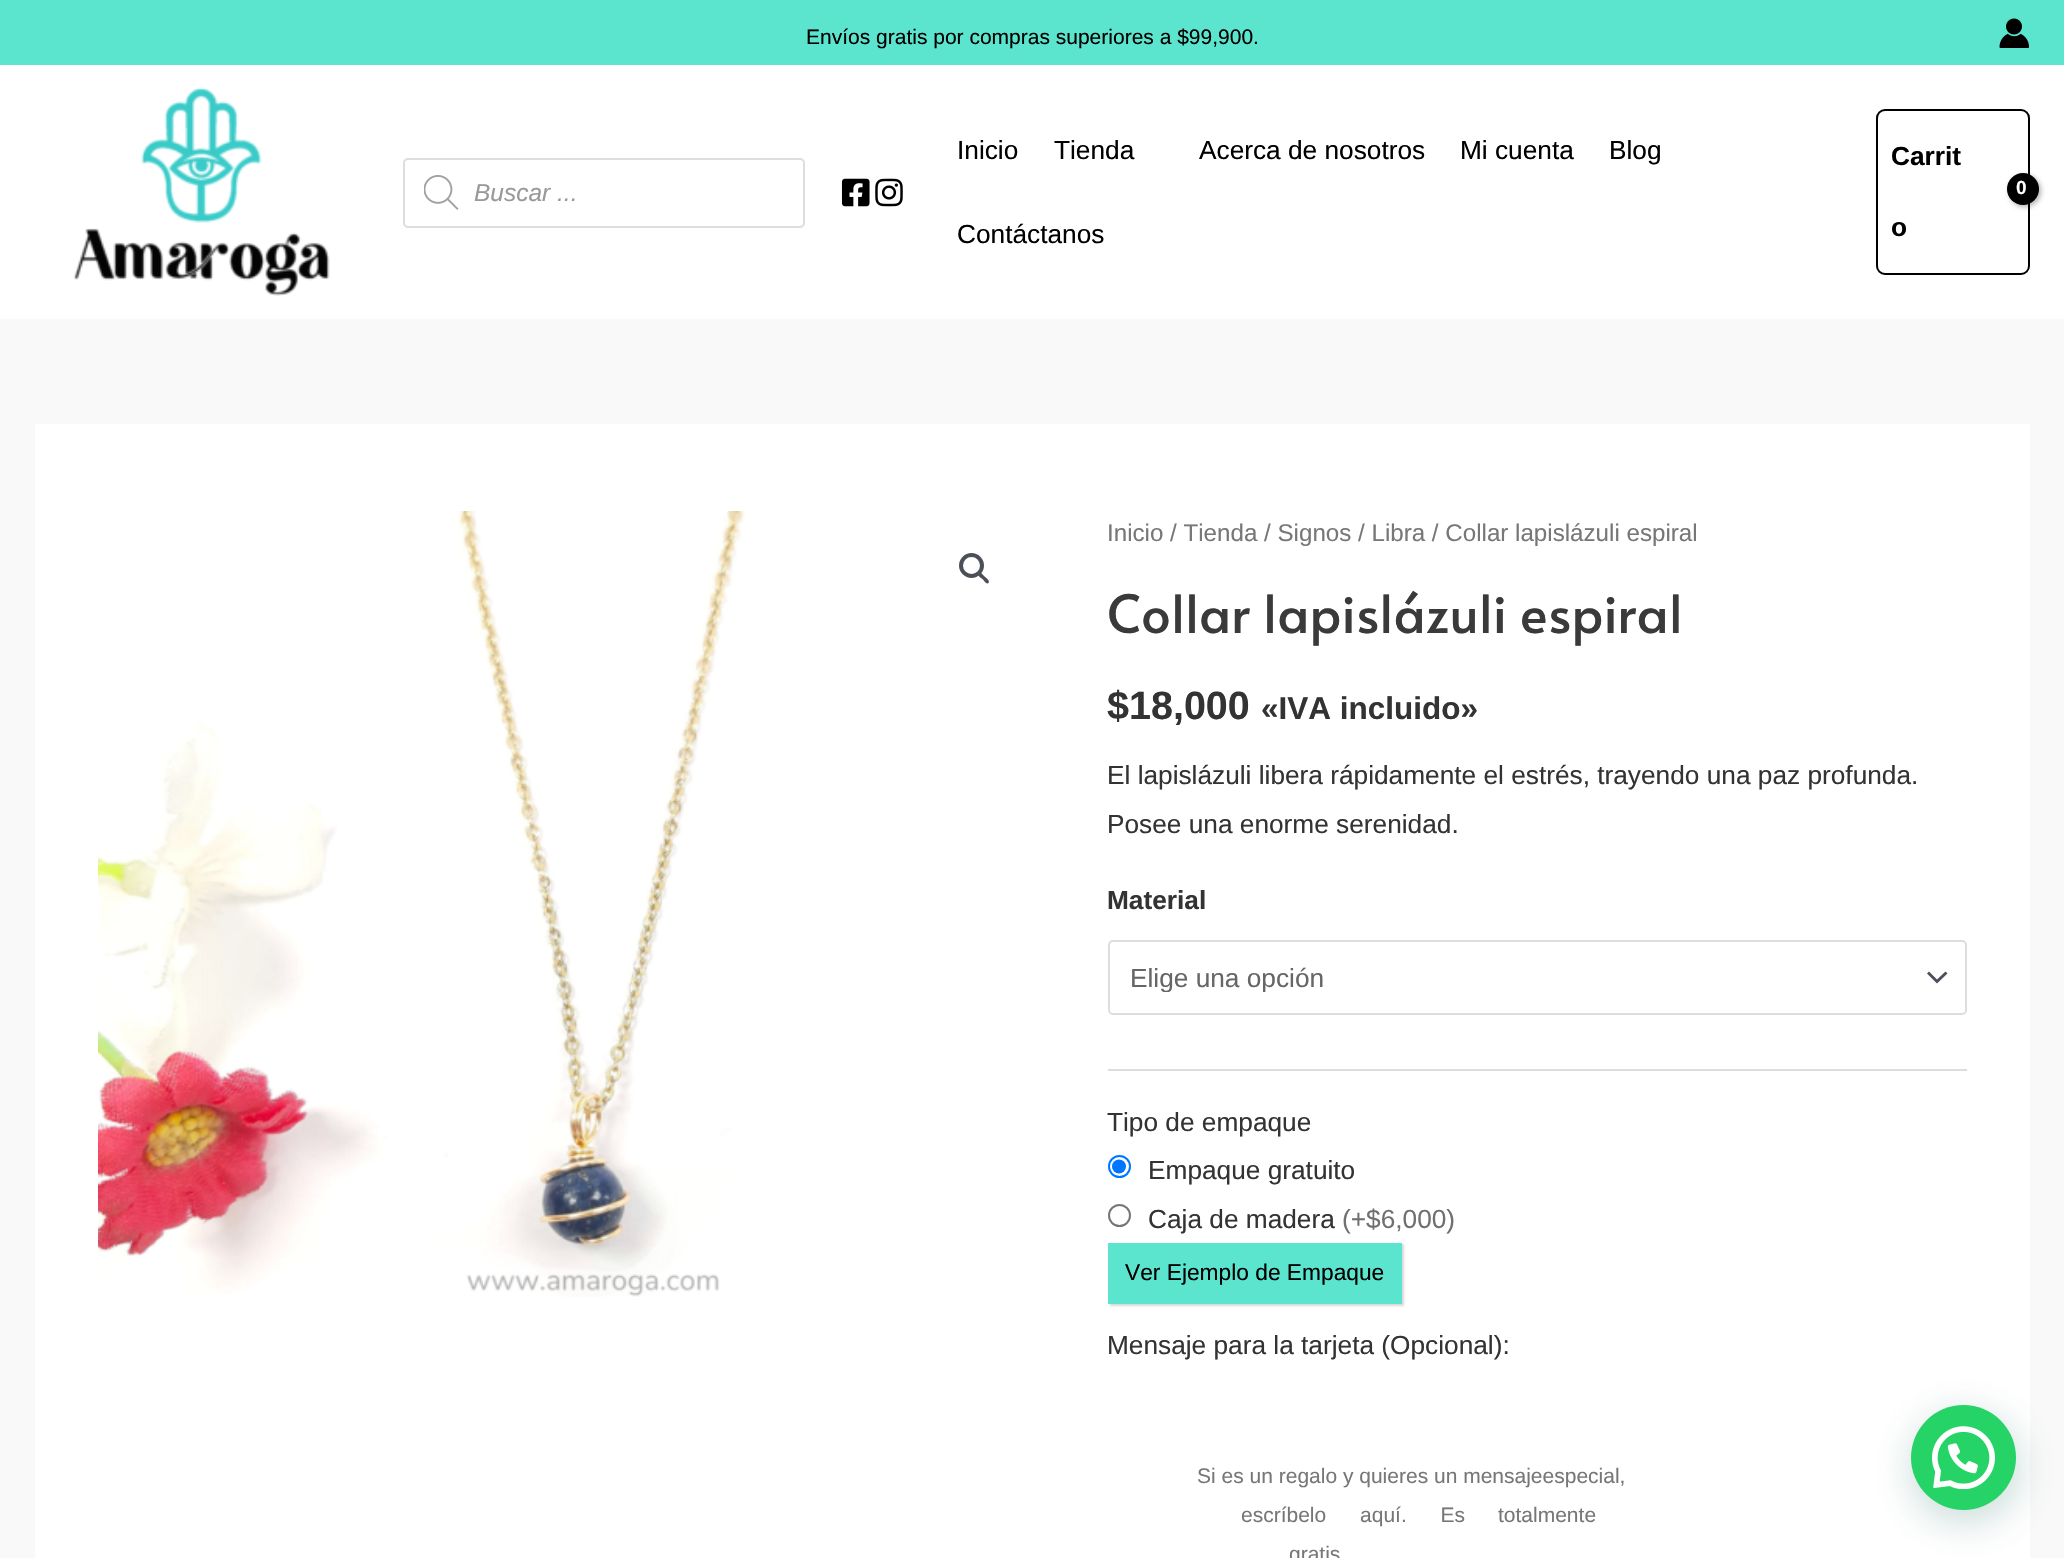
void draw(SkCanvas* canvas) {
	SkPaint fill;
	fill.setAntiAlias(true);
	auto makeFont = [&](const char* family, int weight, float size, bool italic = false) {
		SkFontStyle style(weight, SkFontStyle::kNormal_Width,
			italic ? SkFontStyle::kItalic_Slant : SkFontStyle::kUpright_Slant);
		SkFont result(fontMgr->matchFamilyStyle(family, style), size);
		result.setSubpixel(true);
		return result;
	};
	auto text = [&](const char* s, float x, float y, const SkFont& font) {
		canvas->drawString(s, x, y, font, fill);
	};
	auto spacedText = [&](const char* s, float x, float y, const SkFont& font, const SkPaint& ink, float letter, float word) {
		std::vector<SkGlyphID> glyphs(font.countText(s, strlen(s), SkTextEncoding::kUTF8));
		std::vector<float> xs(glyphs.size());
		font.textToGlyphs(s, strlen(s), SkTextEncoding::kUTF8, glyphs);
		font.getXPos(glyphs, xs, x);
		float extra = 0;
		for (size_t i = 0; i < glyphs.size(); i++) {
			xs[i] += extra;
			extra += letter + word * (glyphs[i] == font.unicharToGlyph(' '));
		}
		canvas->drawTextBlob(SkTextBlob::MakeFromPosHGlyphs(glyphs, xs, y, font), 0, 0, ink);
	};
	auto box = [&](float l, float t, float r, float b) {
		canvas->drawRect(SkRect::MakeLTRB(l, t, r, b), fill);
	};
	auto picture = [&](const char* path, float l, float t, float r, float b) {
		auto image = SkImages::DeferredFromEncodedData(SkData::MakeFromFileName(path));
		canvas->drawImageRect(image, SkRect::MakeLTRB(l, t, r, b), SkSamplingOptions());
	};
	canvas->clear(0xFFF9F9F9);
	fill.setColor(0xFF5CE5CE);
	box(0, 0, 2064, 65);
	picture("image0.png", 1999, 18, 2029, 48);
	fill.setColor(0xFFFFFFFF);
	box(0, 65, 2064, 319);
	picture("image1.png", 73, 87, 330, 296);
	fill.setStyle(SkPaint::kStroke_Style);
	fill.setStrokeWidth(2);
	fill.setColor(0xFFDDDDDD);
	canvas->drawRoundRect(SkRect::MakeLTRB(404, 159, 804, 227), 4, 4, fill);
	picture("image2.png", 424, 175, 459, 210);
	picture("image3.png", 841, 178, 870, 207);
	picture("image4.png", 875, 178, 903, 207);
	fill.setColor(0xFF000000);
	canvas->drawRoundRect(SkRect::MakeLTRB(1877, 110, 2029, 274), 8, 8, fill);
	fill.setStyle(SkPaint::kFill_Style);
	fill.setColor(0x4D000000);
	fill.setMaskFilter(SkMaskFilter::MakeBlur(kNormal_SkBlurStyle, 2.5f));
	canvas->drawRoundRect(SkRect::MakeLTRB(2009, 175, 2041, 207), 16, 16, fill);
	fill.setMaskFilter(nullptr);
	fill.setColor(0xFF000000);
	canvas->drawCircle(2023, 189, 16, fill);
	fill.setColor(0xFFFFFFFF);
	box(35, 424, 2030, 1558);
	picture("image5.png", 98, 511, 745, 1297);
	fill.setStyle(SkPaint::kStroke_Style);
	fill.setStrokeWidth(4);
	fill.setColor(0xFF4B4F58);
	canvas->drawCircle(971.5f, 565.5f, 10.5f, fill);
	fill.setStyle(SkPaint::kFill_Style);
	canvas->drawPath(SkPathBuilder().moveTo(978.5f, 573).cubicTo(980.5f, 571, 983.5f, 575.5f, 984.5f, 576.5f).cubicTo(986, 577.5f, 990.5f, 581, 988.5f, 583).cubicTo(986.5f, 585, 983.5f, 580, 982.5f, 579).cubicTo(981, 578, 976.5f, 575, 978.5f, 573).close().detach(), fill);
	fill.setColor(0xFFDDDDDD);
	box(1108, 1069, 1967, 1071);
	fill.setColor(0xFF4B4F58);
	canvas->drawPath(SkPathBuilder().moveTo(1927, 973.5f).lineTo(1937, 983.5f).lineTo(1947.5f, 973.5f).lineTo(1945.5f, 971.5f).lineTo(1937, 979.5f).lineTo(1929, 971.5f).close().detach(), fill);
	fill.setStyle(SkPaint::kStroke_Style);
	fill.setStrokeWidth(2);
	fill.setColor(0xFFDDDDDD);
	canvas->drawRoundRect(SkRect::MakeLTRB(1109, 941, 1966, 1014), 4, 4, fill);
	fill.setColor(0xFF0075FF);
	canvas->drawCircle(1119.5f, 1166.5f, 10.5f, fill);
	fill.setStyle(SkPaint::kFill_Style);
	canvas->drawCircle(1119, 1166.5f, 7, fill);
	fill.setStyle(SkPaint::kStroke_Style);
	fill.setColor(0xFF767676);
	canvas->drawCircle(1119.5f, 1215.5f, 10.5f, fill);
	fill.setStyle(SkPaint::kFill_Style);
	fill.setColor(0x26000000);
	fill.setMaskFilter(SkMaskFilter::MakeBlur(kNormal_SkBlurStyle, 1));
	canvas->drawRect(SkRect::MakeLTRB(1110, 1244, 1404, 1306), fill);
	fill.setMaskFilter(nullptr);
	fill.setColor(0xFF5CE5CE);
	box(1108, 1243, 1402, 1304);
	fill.setColor(0x3D075E54);
	fill.setMaskFilter(SkMaskFilter::MakeBlur(kNormal_SkBlurStyle, 21));
	canvas->drawRoundRect(SkRect::MakeLTRB(1913, 1416, 2018, 1521), 52.5f, 52.5f, fill);
	fill.setMaskFilter(nullptr);
	fill.setColor(0xFF25D366);
	canvas->drawCircle(1963.5f, 1457.5f, 52.5f, fill);
	picture("image6.png", 1932, 1426, 1995, 1489);
	auto font1 = makeFont("Liberation Sans", 400, 21);
	fill.setColor(0xFF000000);
	text("Envíos gratis por compras superiores a $99,900.", 806, 44, font1);
	auto font2 = makeFont("Liberation Sans", 400, 24.5f, true);
	fill.setColor(0xFF999999);
	text("Buscar ...", 474, 201, font2);
	auto font3 = makeFont("Liberation Sans", 400, 26.25f);
	fill.setColor(0xFF000000);
	text("Inicio", 957, 159, font3);
	text("Tienda", 1054, 159, font3);
	text("Acerca de nosotros", 1199, 159, font3);
	text("Mi cuenta", 1460, 159, font3);
	text("Blog", 1609, 159, font3);
	text("Contáctanos", 957, 243, font3);
	auto font4 = makeFont("Liberation Sans", 700, 26.25f);
	text("Carrit", 1891, 165, font4);
	text("o", 1891, 236, font4);
	auto font5 = makeFont("Liberation Sans", 700, 19);
	fill.setColor(0xFFFFFFFF);
	spacedText("0", 2016, 194, font5, fill, -1, 0);
	auto font6 = makeFont("Liberation Sans", 400, 24.15f);
	fill.setColor(0xFF777777);
	text("Inicio / Tienda / Signos / Libra / Collar lapislázuli espiral", 1107, 541, font6);
	auto font7 = makeFont("Alata", 400, 52.5f);
	fill.setColor(0xFF3A3A3A);
	text("Collar lapislázuli espiral", 1107, 633, font7);
	auto font8 = makeFont("Liberation Sans", 700, 39.5f);
	fill.setColor(0xFF333333);
	text("$18,000", 1107, 719, font8);
	auto font9 = makeFont("Liberation Sans", 700, 31.5f);
	text("«IVA incluido»", 1261, 719, font9);
	text("El lapislázuli libera rápidamente el estrés, trayendo una paz profunda.", 1107, 784, font3);
	text("Posee una enorme serenidad.", 1107, 833, font3);
	text("Material", 1107, 909, font4);
	canvas->save();
	canvas->clipRect(SkRect::MakeLTRB(1131, 963, 1913, 992));
	fill.setColor(0xFF666666);
	text("Elige una opción", 1130, 987, font3);
	canvas->restore();
	fill.setColor(0xFF333333);
	text("Tipo de empaque", 1107, 1131, font3);
	text("Empaque gratuito", 1148, 1179, font3);
	text("Caja de madera", 1148, 1228, font3);
	fill.setColor(0xFF707070);
	text("(+$6,000)", 1342, 1228, font3);
	auto font10 = makeFont("Liberation Sans", 400, 22.75f);
	fill.setColor(0xFF000000);
	text("Ver Ejemplo de Empaque", 1125, 1280, font10);
	fill.setColor(0xFF333333);
	text("Mensaje para la tarjeta (Opcional):", 1107, 1354, font3);
	fill.setColor(0xFF777777);
	text("Si es un regalo y quieres un mensajeespecial,", 1197, 1483, font1);
	spacedText("escríbelo aquí. Es", 1241, 1522, font1, fill, 0, 28);
	text("totalmente", 1498, 1522, font1);
	text("gratis", 1289, 1561, font1);
}
